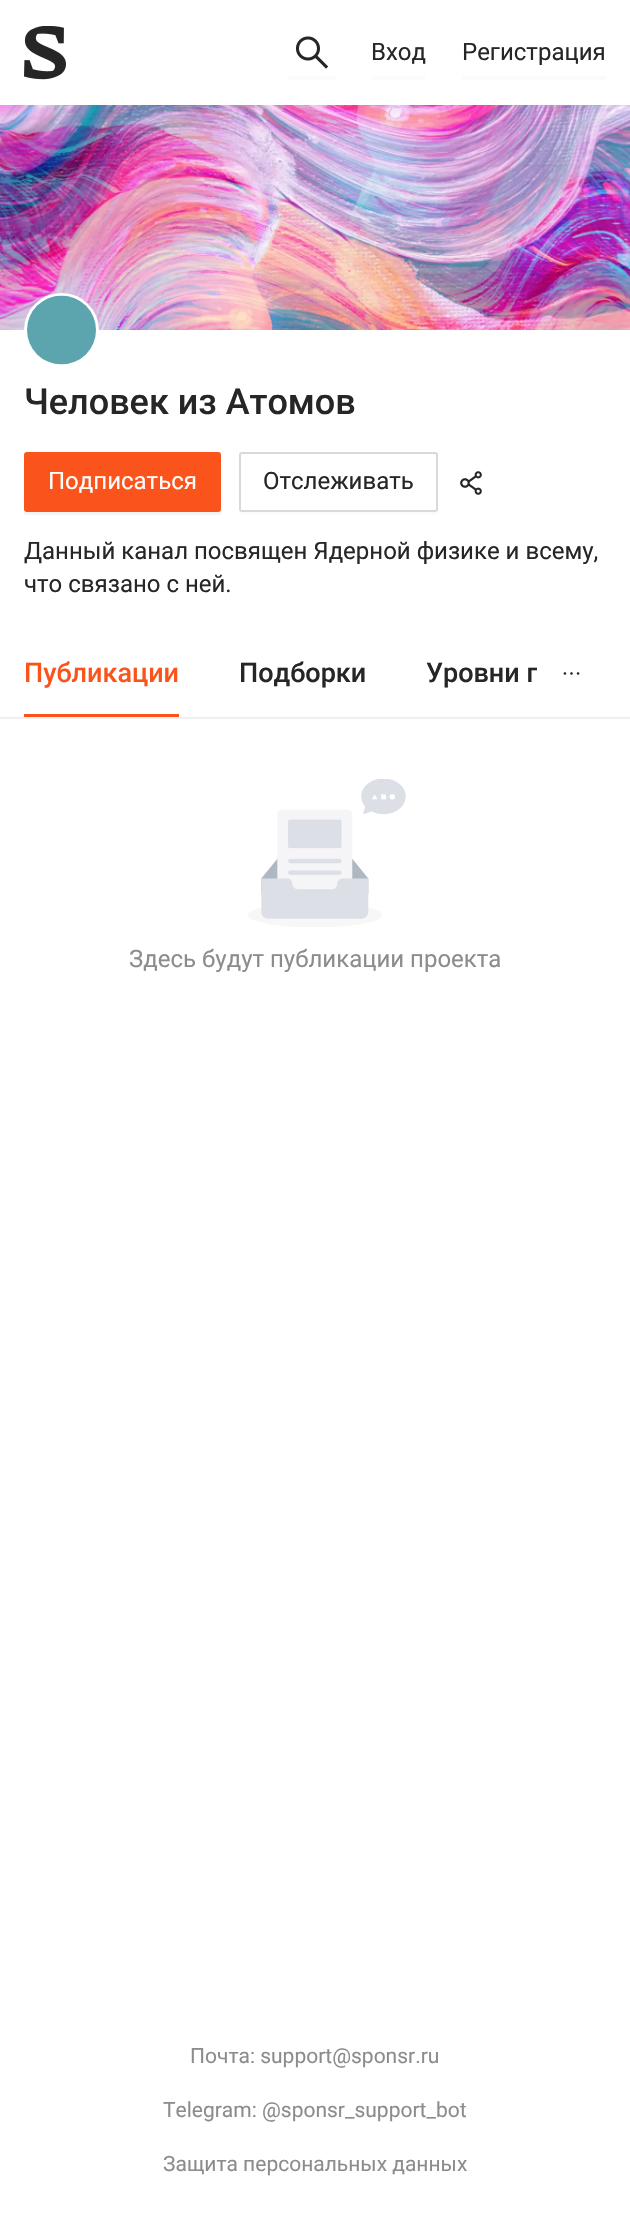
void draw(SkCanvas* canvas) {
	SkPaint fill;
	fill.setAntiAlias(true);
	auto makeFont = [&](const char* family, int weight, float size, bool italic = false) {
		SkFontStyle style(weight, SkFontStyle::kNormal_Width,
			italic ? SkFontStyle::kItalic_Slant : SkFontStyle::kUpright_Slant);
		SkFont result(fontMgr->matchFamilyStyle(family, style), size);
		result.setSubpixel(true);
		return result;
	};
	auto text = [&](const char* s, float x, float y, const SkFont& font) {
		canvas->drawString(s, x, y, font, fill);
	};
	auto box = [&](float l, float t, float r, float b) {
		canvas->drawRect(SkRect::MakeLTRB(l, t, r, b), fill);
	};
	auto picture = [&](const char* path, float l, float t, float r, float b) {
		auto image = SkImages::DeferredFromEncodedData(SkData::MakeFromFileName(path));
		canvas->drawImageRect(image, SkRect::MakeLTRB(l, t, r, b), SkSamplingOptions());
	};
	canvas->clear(0xFFFFFFFF);
	picture("image0.png", 24, 26, 66, 80);
	fill.setColor(0xFFFBFBFB);
	canvas->drawPath(SkPathBuilder().moveTo(288, 74).cubicTo(288, 82, 290, 80, 298, 80).lineTo(326, 80).cubicTo(334, 80, 336, 82, 336, 74).cubicTo(336, 75, 335, 76, 333, 76).lineTo(291, 76).cubicTo(289, 76, 288, 75, 288, 74).close().detach(), fill);
	picture("image1.png", 295, 36, 328, 69);
	canvas->drawPath(SkPathBuilder().moveTo(372, 74).cubicTo(372, 82, 374, 80, 383, 80).lineTo(415, 80).cubicTo(424, 80, 426, 82, 426, 74).cubicTo(426, 75, 425, 76, 423, 76).lineTo(375, 76).cubicTo(373, 76, 372, 75, 372, 74).close().detach(), fill);
	canvas->drawPath(SkPathBuilder().moveTo(462, 74).lineTo(462, 77).cubicTo(462, 79, 463, 80, 465, 80).lineTo(603, 80).cubicTo(605, 80, 606, 79, 606, 77).lineTo(606, 74).cubicTo(606, 75, 605, 76, 603, 76).lineTo(465, 76).cubicTo(463, 76, 462, 75, 462, 74).close().detach(), fill);
	picture("image2.png", 0, 105, 630, 330);
	fill.setColor(0xFFFFFFFF);
	canvas->drawCircle(61.5f, 330.5f, 36, fill);
	fill.setStyle(SkPaint::kStroke_Style);
	fill.setStrokeWidth(3);
	canvas->drawCircle(61.5f, 330.5f, 36, fill);
	picture("image3.png", 27, 295, 96, 365);
	fill.setStyle(SkPaint::kFill_Style);
	fill.setColor(0xFFF4F4F4);
	canvas->drawPath(SkPathBuilder().moveTo(24, 508).lineTo(24, 512).cubicTo(24, 514, 25, 515, 27, 515).lineTo(218, 515).cubicTo(220, 515, 221, 514, 221, 512).lineTo(221, 458).lineTo(220, 456).lineTo(220, 508).cubicTo(220, 510, 219, 512, 218, 512).lineTo(27, 512).cubicTo(25, 512, 24, 510, 24, 508).close().detach(), fill);
	fill.setColor(0xFFFA541C);
	canvas->drawRoundRect(SkRect::MakeLTRB(25, 453, 220, 511), 2, 2, fill);
	fill.setStyle(SkPaint::kStroke_Style);
	fill.setStrokeWidth(2);
	canvas->drawRoundRect(SkRect::MakeLTRB(25, 453, 220, 511), 2, 2, fill);
	fill.setStyle(SkPaint::kFill_Style);
	fill.setColor(0xFFFBFBFB);
	canvas->drawPath(SkPathBuilder().moveTo(239, 510).lineTo(239, 512).cubicTo(239, 514, 240, 515, 242, 515).lineTo(435, 515).cubicTo(437, 515, 438, 514, 438, 512).lineTo(438, 508).cubicTo(438, 510, 437, 512, 435, 512).lineTo(242, 512).cubicTo(240, 512, 240, 511, 239, 510).close().detach(), fill);
	fill.setStyle(SkPaint::kStroke_Style);
	fill.setColor(0xFFD9D9D9);
	canvas->drawRoundRect(SkRect::MakeLTRB(240, 453, 437, 511), 2, 2, fill);
	picture("image4.png", 460, 471, 482, 495);
	fill.setStyle(SkPaint::kFill_Style);
	fill.setColor(0xFFFA541C);
	box(24, 714, 179, 717);
	picture("image5.png", 563, 672, 580, 675);
	fill.setColor(0xFFF0F0F0);
	box(0, 717, 630, 719);
	picture("image6.png", 248, 779, 406, 927);
	auto font1 = makeFont("Roboto", 400, 24);
	fill.setColor(0xFF262626);
	text("Вход", 371, 60, font1);
	text("Регистрация", 462, 60, font1);
	auto font2 = makeFont("Roboto", 500, 36);
	text("Человек из Атомов", 24, 414, font2);
	fill.setColor(0xFFFFFFFF);
	text("Подписаться", 48, 489, font1);
	fill.setColor(0xFF262626);
	text("Отслеживать", 263, 489, font1);
	text("Данный канал посвящен Ядерной физике и всему,", 24, 559, font1);
	text("что связано с ней.", 24, 592, font1);
	auto font3 = makeFont("Roboto", 500, 27);
	fill.setColor(0xFFFA541C);
	text("Публикации", 24, 682, font3);
	fill.setColor(0xFF262626);
	text("Подборки", 239, 682, font3);
	canvas->save();
	canvas->clipRect(SkRect::MakeLTRB(24, 632, 537, 717));
	text("Уровни п", 426, 682, font3);
	canvas->restore();
	fill.setColor(0xFF8C8C8C);
	text("Здесь будут публикации проекта", 129, 967, font1);
	auto font4 = makeFont("Roboto", 400, 21);
	text("Почта: support@sponsr.ru", 190, 2063, font4);
	text("Telegram: @sponsr_support_bot", 163, 2117, font4);
	text("Защита персональных данных", 163, 2171, font4);
}
